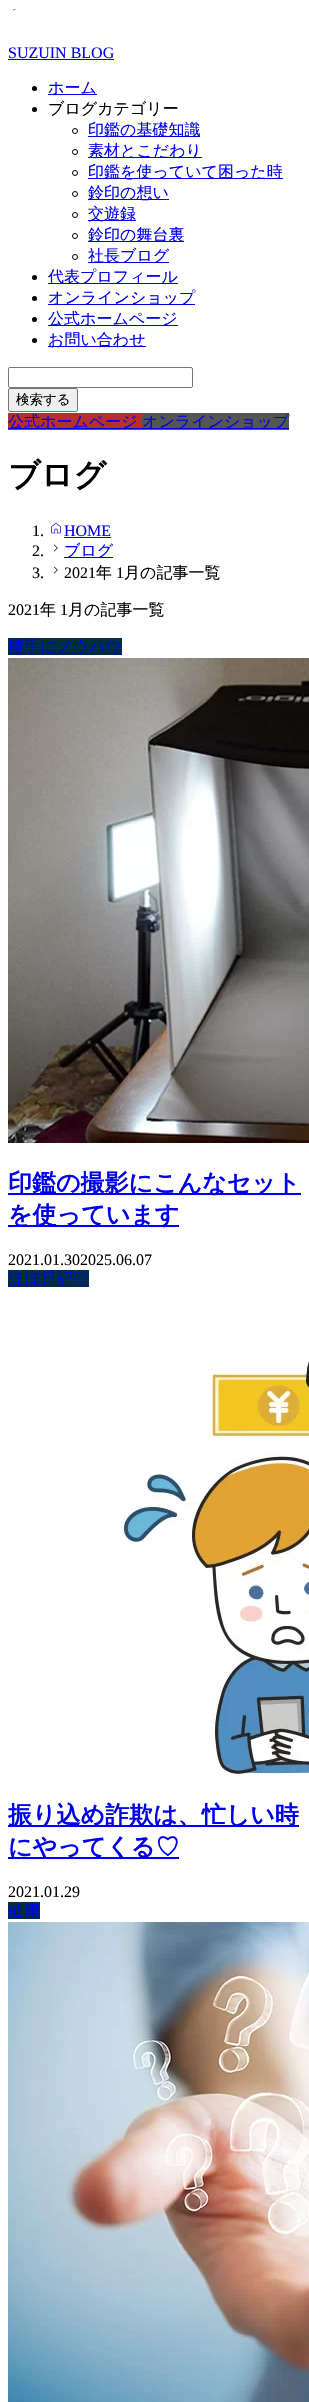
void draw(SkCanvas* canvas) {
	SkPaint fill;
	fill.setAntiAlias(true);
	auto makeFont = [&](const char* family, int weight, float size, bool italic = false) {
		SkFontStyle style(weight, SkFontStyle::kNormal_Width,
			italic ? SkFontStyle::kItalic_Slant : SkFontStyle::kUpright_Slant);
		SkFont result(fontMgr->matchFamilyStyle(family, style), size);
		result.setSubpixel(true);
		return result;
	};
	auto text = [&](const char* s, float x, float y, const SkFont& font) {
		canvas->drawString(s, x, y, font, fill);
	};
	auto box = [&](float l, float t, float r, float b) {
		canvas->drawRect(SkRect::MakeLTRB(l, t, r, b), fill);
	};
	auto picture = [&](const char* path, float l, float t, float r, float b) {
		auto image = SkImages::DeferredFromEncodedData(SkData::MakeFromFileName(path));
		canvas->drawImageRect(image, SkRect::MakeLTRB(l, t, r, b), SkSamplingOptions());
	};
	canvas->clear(0xFFFFFFFF);
	fill.setStyle(SkPaint::kStroke_Style);
	fill.setStrokeWidth(0.6f);
	fill.setStrokeCap(SkPaint::kRound_Cap);
	fill.setColor(0xFF000000);
	canvas->drawPath(SkPathBuilder().moveTo(13.5f, 10).lineTo(15, 9.5f).detach(), fill);
	fill.setStyle(SkPaint::kFill_Style);
	fill.setColor(0xFF0000EE);
	box(8, 59, 114, 60);
	fill.setColor(0xFF000000);
	canvas->drawCircle(34.5f, 88.5f, 2.5f, fill);
	fill.setColor(0xFF0000EE);
	box(48, 94, 97, 95);
	fill.setColor(0xFF000000);
	canvas->drawCircle(34.5f, 109.5f, 2.5f, fill);
	fill.setStyle(SkPaint::kStroke_Style);
	fill.setStrokeWidth(1);
	fill.setStrokeCap(SkPaint::kButt_Cap);
	canvas->drawCircle(75, 131, 2.5f, fill);
	fill.setStyle(SkPaint::kFill_Style);
	fill.setColor(0xFF0000EE);
	box(88, 136, 200, 137);
	fill.setStyle(SkPaint::kStroke_Style);
	fill.setColor(0xFF000000);
	canvas->drawCircle(75, 152, 2.5f, fill);
	fill.setStyle(SkPaint::kFill_Style);
	fill.setColor(0xFF0000EE);
	box(88, 157, 202, 158);
	fill.setStyle(SkPaint::kStroke_Style);
	fill.setColor(0xFF000000);
	canvas->drawCircle(75, 173, 2.5f, fill);
	fill.setStyle(SkPaint::kFill_Style);
	fill.setColor(0xFF0000EE);
	box(88, 178, 283, 179);
	fill.setStyle(SkPaint::kStroke_Style);
	fill.setColor(0xFF000000);
	canvas->drawCircle(75, 194, 2.5f, fill);
	fill.setStyle(SkPaint::kFill_Style);
	fill.setColor(0xFF0000EE);
	box(88, 199, 169, 200);
	fill.setStyle(SkPaint::kStroke_Style);
	fill.setColor(0xFF000000);
	canvas->drawCircle(75, 215, 2.5f, fill);
	fill.setStyle(SkPaint::kFill_Style);
	fill.setColor(0xFF0000EE);
	box(88, 220, 136, 221);
	fill.setStyle(SkPaint::kStroke_Style);
	fill.setColor(0xFF000000);
	canvas->drawCircle(75, 236, 2.5f, fill);
	fill.setStyle(SkPaint::kFill_Style);
	fill.setColor(0xFF0000EE);
	box(88, 241, 184, 242);
	fill.setStyle(SkPaint::kStroke_Style);
	fill.setColor(0xFF000000);
	canvas->drawCircle(75, 257, 2.5f, fill);
	fill.setStyle(SkPaint::kFill_Style);
	fill.setColor(0xFF0000EE);
	box(88, 262, 169, 263);
	fill.setColor(0xFF000000);
	canvas->drawCircle(34.5f, 277.5f, 2.5f, fill);
	fill.setColor(0xFF0000EE);
	box(48, 283, 178, 284);
	fill.setColor(0xFF000000);
	canvas->drawCircle(34.5f, 298.5f, 2.5f, fill);
	fill.setColor(0xFF0000EE);
	box(48, 304, 195, 305);
	fill.setColor(0xFF000000);
	canvas->drawCircle(34.5f, 319.5f, 2.5f, fill);
	fill.setColor(0xFF0000EE);
	box(48, 325, 178, 326);
	fill.setColor(0xFF000000);
	canvas->drawCircle(34.5f, 340.5f, 2.5f, fill);
	fill.setColor(0xFF0000EE);
	box(48, 346, 146, 347);
	fill.setStyle(SkPaint::kStroke_Style);
	fill.setColor(0xFF767676);
	canvas->drawRoundRect(SkRect::MakeLTRB(8.5f, 367.5f, 192.5f, 387.5f), 1.5f, 1.5f, fill);
	fill.setStyle(SkPaint::kFill_Style);
	fill.setColor(0xFFEFEFEF);
	canvas->drawRoundRect(SkRect::MakeLTRB(8.5f, 388.5f, 77.5f, 411.5f), 1.5f, 1.5f, fill);
	fill.setStyle(SkPaint::kStroke_Style);
	fill.setColor(0xFF767676);
	canvas->drawRoundRect(SkRect::MakeLTRB(8.5f, 388.5f, 77.5f, 411.5f), 1.5f, 1.5f, fill);
	fill.setStyle(SkPaint::kFill_Style);
	fill.setColor(0xFFB52F2F);
	box(8, 413, 142, 430);
	fill.setColor(0xFF0000EE);
	box(8, 428, 142, 429);
	fill.setColor(0xFF555555);
	box(142, 413, 289, 430);
	fill.setColor(0xFF0000EE);
	box(142, 428, 289, 429);
	picture("image0.png", 51, 523, 61, 534);
	box(64, 537, 111, 538);
	picture("image1.png", 53, 544, 58, 552);
	box(64, 557, 113, 558);
	picture("image1.png", 53, 566, 58, 574);
	fill.setColor(0xFF003040);
	box(8, 638, 122, 655);
	fill.setColor(0xFF0000EE);
	box(8, 653, 122, 654);
	picture("image2.png", 8, 658, 309, 1143);
	box(8, 1193, 301, 1195);
	box(8, 1225, 179, 1227);
	fill.setColor(0xFF003040);
	box(8, 1270, 89, 1287);
	fill.setColor(0xFF0000EE);
	box(8, 1285, 89, 1286);
	picture("image3.png", 122, 1359, 309, 1775);
	box(8, 1825, 299, 1827);
	box(8, 1857, 179, 1859);
	fill.setColor(0xFF003040);
	box(8, 1902, 40, 1919);
	fill.setColor(0xFF0000EE);
	box(8, 1917, 40, 1918);
	picture("image4.png", 8, 1922, 309, 2402);
	auto font1 = makeFont("Liberation Serif", 400, 16);
	text("SUZUIN BLOG", 8, 58, font1);
	auto font2 = makeFont("WenQuanYi Zen Hei", 500, 16);
	text("ホーム", 48, 93, font2);
	fill.setColor(0xFF000000);
	text("ブログカテゴリー", 48, 114, font2);
	fill.setColor(0xFF0000EE);
	text("印鑑の基礎知識", 88, 135, font2);
	text("素材とこだわり", 88, 156, font2);
	text("印鑑を使っていて困った時", 88, 177, font2);
	text("鈴印の想い", 88, 198, font2);
	text("交遊録", 88, 219, font2);
	text("鈴印の舞台裏", 88, 240, font2);
	text("社長ブログ", 88, 261, font2);
	text("代表プロフィール", 48, 282, font2);
	text("オンラインショップ", 48, 303, font2);
	text("公式ホームページ", 48, 324, font2);
	text("お問い合わせ", 48, 345, font2);
	auto font3 = makeFont("WenQuanYi Zen Hei", 500, 13.5f);
	fill.setColor(0xFF000000);
	text("検索する", 16, 404, font3);
	fill.setColor(0xFF0000EE);
	text("公式ホームページ", 8, 427, font2);
	text("オンラインショップ", 142, 427, font2);
	auto font4 = makeFont("WenQuanYi Zen Hei", 700, 32);
	fill.setColor(0xFF000000);
	text("ブログ", 8, 486, font4);
	text("1.", 32, 536, font1);
	fill.setColor(0xFF0000EE);
	text("HOME", 64, 536, font1);
	fill.setColor(0xFF000000);
	text("2.", 32, 556, font1);
	fill.setColor(0xFF0000EE);
	text("ブログ", 64, 556, font2);
	fill.setColor(0xFF000000);
	text("3.", 32, 578, font1);
	text("2021", 64, 578, font1);
	text("年", 96, 578, font2);
	text("1", 116, 578, font1);
	text("月の記事一覧", 124, 578, font2);
	text("2021", 8, 615, font1);
	text("年", 40, 615, font2);
	text("1", 60, 615, font1);
	text("月の記事一覧", 68, 615, font2);
	fill.setColor(0xFF0000EE);
	text("勝手にノウハウ", 8, 652, font2);
	auto font5 = makeFont("WenQuanYi Zen Hei", 700, 24);
	text("印鑑の撮影にこんなセット", 8, 1191, font5);
	text("を使っています", 8, 1223, font5);
	fill.setColor(0xFF000000);
	text("2021.01.302025.06.07", 8, 1265, font1);
	fill.setColor(0xFF0000EE);
	text("ほぼ日記♡", 8, 1284, font2);
	text("振り込め詐欺は、忙しい時", 8, 1823, font5);
	text("にやってくる♡", 8, 1855, font5);
	fill.setColor(0xFF000000);
	text("2021.01.29", 8, 1897, font1);
	fill.setColor(0xFF0000EE);
	text("健康", 8, 1916, font2);
}
